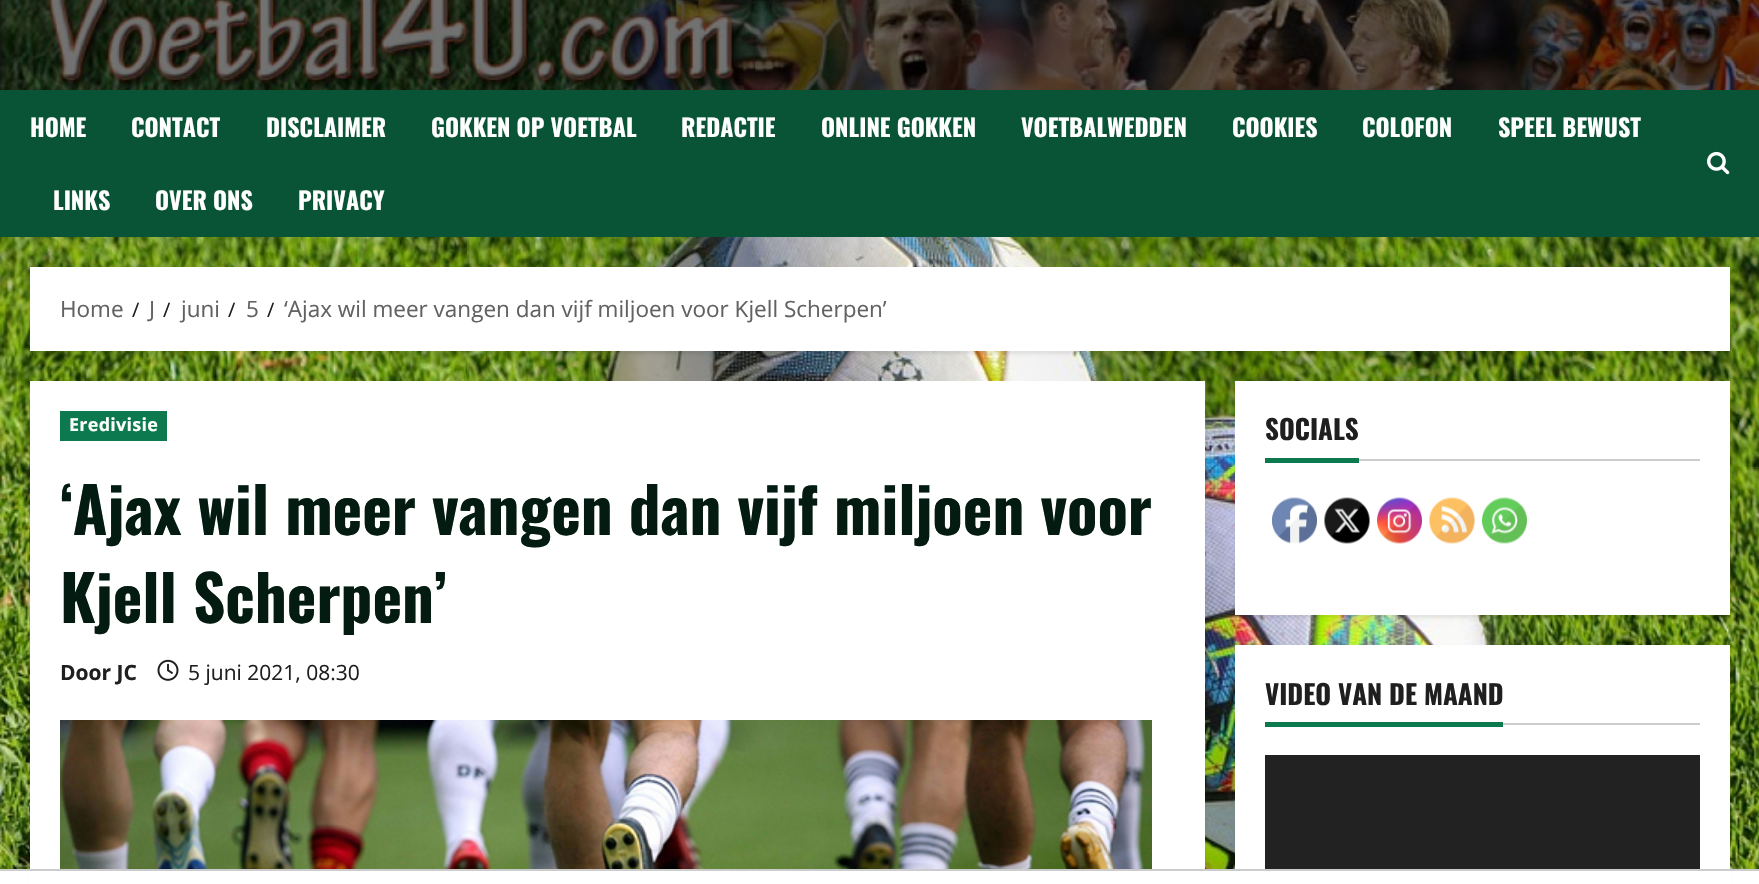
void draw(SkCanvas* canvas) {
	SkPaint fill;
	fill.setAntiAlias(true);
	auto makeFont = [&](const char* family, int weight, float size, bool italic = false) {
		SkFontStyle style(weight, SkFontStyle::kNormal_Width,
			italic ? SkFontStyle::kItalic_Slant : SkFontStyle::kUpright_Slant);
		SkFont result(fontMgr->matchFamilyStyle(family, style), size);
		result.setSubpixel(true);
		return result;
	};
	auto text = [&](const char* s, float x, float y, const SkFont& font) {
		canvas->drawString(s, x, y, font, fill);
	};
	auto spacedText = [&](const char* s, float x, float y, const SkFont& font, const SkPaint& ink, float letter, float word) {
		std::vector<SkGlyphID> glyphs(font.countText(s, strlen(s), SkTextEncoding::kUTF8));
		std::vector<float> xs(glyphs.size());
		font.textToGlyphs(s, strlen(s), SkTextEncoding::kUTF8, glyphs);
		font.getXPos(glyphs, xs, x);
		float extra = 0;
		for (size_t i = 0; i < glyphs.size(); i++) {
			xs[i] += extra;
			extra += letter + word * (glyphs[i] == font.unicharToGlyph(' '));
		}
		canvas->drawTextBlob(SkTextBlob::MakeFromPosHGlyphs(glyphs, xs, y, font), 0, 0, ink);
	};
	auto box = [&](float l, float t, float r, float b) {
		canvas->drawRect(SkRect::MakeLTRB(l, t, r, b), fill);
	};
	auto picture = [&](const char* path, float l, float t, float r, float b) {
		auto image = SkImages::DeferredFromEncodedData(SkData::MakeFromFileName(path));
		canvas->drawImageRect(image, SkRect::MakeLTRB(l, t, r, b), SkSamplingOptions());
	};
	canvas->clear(0xFFFFFFFF);
	picture("image0.png", 0, 237, 1759, 869);
	picture("image1.png", 0, 0, 1759, 90);
	fill.setColor(0xFF095437);
	box(0, 90, 1759, 237);
	picture("image2.png", 1707, 151, 1730, 175);
	fill.setColor(0x14000000);
	fill.setMaskFilter(SkMaskFilter::MakeBlur(kNormal_SkBlurStyle, 1.5f));
	canvas->drawRect(SkRect::MakeLTRB(30, 270, 1730, 354), fill);
	fill.setMaskFilter(nullptr);
	fill.setColor(0xFFFFFFFF);
	box(30, 267, 1730, 351);
	fill.setColor(0x14000000);
	fill.setMaskFilter(SkMaskFilter::MakeBlur(kNormal_SkBlurStyle, 1.5f));
	canvas->drawRect(SkRect::MakeLTRB(30, 384, 1205, 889), fill);
	fill.setMaskFilter(nullptr);
	fill.setColor(0xFFFFFFFF);
	box(30, 381, 1205, 869);
	fill.setColor(0xFF0C794F);
	box(60, 411, 167, 441);
	picture("image3.png", 157, 659, 179, 681);
	picture("image4.png", 60, 720, 1152, 869);
	fill.setColor(0x14000000);
	fill.setMaskFilter(SkMaskFilter::MakeBlur(kNormal_SkBlurStyle, 1.5f));
	canvas->drawRect(SkRect::MakeLTRB(1235, 384, 1730, 618), fill);
	fill.setMaskFilter(nullptr);
	fill.setColor(0xFFFFFFFF);
	box(1235, 381, 1730, 615);
	fill.setColor(0xFFCCCCCC);
	box(1359, 459, 1700, 461);
	fill.setColor(0xFF0C794F);
	box(1265, 458, 1359, 463);
	picture("image5.png", 1272, 497, 1317, 544);
	picture("image6.png", 1324, 497, 1370, 544);
	picture("image7.png", 1377, 497, 1422, 544);
	picture("image8.png", 1429, 497, 1475, 544);
	picture("image9.png", 1482, 497, 1527, 544);
	fill.setColor(0x14000000);
	fill.setMaskFilter(SkMaskFilter::MakeBlur(kNormal_SkBlurStyle, 1.5f));
	canvas->drawRect(SkRect::MakeLTRB(1235, 648, 1730, 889), fill);
	fill.setMaskFilter(nullptr);
	fill.setColor(0xFFFFFFFF);
	box(1235, 645, 1730, 869);
	fill.setColor(0xFFCCCCCC);
	box(1503, 723, 1700, 725);
	fill.setColor(0xFF0C794F);
	box(1265, 722, 1503, 727);
	fill.setColor(0xFF222222);
	box(1265, 755, 1700, 869);
	fill.setColor(0xFFFFFFFF);
	box(28, 871, 1732, 884);
	fill.setColor(0xFFCCCCCC);
	box(0, 869, 1759, 871);
	auto font1 = makeFont("Oswald", 700, 24);
	fill.setColor(0xFFFFFFFF);
	text("HOME", 30, 137, font1);
	text("CONTACT", 131, 137, font1);
	text("DISCLAIMER", 266, 137, font1);
	text("GOKKEN OP VOETBAL", 431, 137, font1);
	text("REDACTIE", 681, 137, font1);
	text("ONLINE GOKKEN", 821, 137, font1);
	text("VOETBALWEDDEN", 1021, 137, font1);
	text("COOKIES", 1232, 137, font1);
	text("COLOFON", 1362, 137, font1);
	text("SPEEL BEWUST", 1498, 137, font1);
	text("LINKS", 53, 210, font1);
	text("OVER ONS", 155, 210, font1);
	text("PRIVACY", 298, 210, font1);
	auto font2 = makeFont("Open Sans", 400, 22.5f);
	fill.setColor(0xFF626262);
	text("Home", 60, 317, font2);
	auto font3 = makeFont("Open Sans", 400, 20);
	fill.setColor(0xFF1F1F1F);
	text("/", 132, 317, font3);
	fill.setColor(0xFF626262);
	text("J", 149, 317, font2);
	fill.setColor(0xFF1F1F1F);
	text("/", 163, 317, font3);
	fill.setColor(0xFF626262);
	text("juni", 181, 317, font2);
	fill.setColor(0xFF1F1F1F);
	text("/", 228, 317, font3);
	fill.setColor(0xFF626262);
	text("5", 246, 317, font2);
	fill.setColor(0xFF1F1F1F);
	text("/", 267, 317, font3);
	fill.setColor(0xFF626262);
	text("‘Ajax wil meer vangen dan vijf miljoen voor Kjell Scherpen’", 284, 317, font2);
	auto font4 = makeFont("Open Sans", 700, 18);
	fill.setColor(0xFFFFFFFF);
	spacedText("Eredivisie", 69, 431, font4, fill, 0.25f, 0);
	auto font5 = makeFont("Oswald", 700, 63);
	fill.setColor(0xFF031B11);
	text("‘Ajax wil meer vangen dan vijf miljoen voor", 60, 535, font5);
	text("Kjell Scherpen’", 60, 623, font5);
	auto font6 = makeFont("Open Sans", 700, 21);
	fill.setColor(0xFF1F1F1F);
	text("Door JC", 60, 680, font6);
	auto font7 = makeFont("Open Sans", 400, 21);
	text("5 juni 2021, 08:30", 188, 680, font7);
	auto font8 = makeFont("Oswald", 700, 27);
	text("SOCIALS", 1265, 440, font8);
	text("VIDEO VAN DE MAAND", 1265, 705, font8);
}
